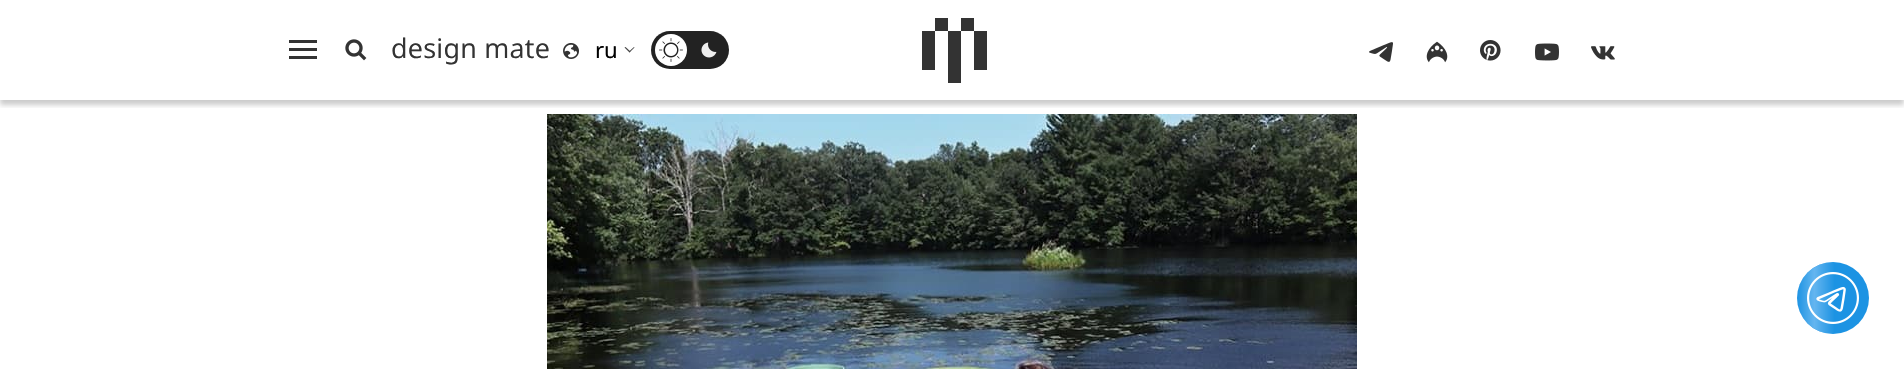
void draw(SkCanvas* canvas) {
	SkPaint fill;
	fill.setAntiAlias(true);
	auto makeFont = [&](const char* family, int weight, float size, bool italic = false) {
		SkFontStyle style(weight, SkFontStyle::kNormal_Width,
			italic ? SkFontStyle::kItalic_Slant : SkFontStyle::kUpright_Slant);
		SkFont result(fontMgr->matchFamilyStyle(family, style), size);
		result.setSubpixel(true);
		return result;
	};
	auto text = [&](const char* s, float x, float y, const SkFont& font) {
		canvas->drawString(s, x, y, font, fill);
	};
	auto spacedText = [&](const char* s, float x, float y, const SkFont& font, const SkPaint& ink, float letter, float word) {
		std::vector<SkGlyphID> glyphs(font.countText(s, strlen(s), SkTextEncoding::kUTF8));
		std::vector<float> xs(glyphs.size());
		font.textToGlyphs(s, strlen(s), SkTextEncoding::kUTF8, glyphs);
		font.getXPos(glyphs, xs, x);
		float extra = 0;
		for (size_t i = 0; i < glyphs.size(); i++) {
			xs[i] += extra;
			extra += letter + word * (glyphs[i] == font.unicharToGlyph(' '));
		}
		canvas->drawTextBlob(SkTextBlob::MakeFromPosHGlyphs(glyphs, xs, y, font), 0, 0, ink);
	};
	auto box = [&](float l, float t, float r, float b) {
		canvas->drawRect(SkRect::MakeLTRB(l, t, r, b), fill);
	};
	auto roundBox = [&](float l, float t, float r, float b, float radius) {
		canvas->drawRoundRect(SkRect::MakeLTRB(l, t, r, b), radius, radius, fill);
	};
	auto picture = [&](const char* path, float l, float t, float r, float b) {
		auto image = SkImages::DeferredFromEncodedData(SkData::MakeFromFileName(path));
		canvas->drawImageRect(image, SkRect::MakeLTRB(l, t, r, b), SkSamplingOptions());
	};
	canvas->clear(0xFFFFFFFF);
	canvas->save();
	canvas->clipRect(SkRect::MakeLTRB(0, 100, 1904, 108));
	fill.setColor(0x33000000);
	fill.setMaskFilter(SkMaskFilter::MakeBlur(kNormal_SkBlurStyle, 2.5f));
	canvas->drawRect(SkRect::MakeLTRB(0, 5, 1904, 105), fill);
	fill.setMaskFilter(nullptr);
	canvas->restore();
	fill.setColor(0xFF333333);
	box(289, 40, 317, 43);
	box(289, 48, 317, 51);
	box(289, 56, 317, 59);
	picture("image0.png", 345, 39, 367, 61);
	picture("image1.png", 563, 43, 579, 59);
	fill.setColor(0xFF444444);
	canvas->drawPath(SkPathBuilder().moveTo(634, 47).lineTo(634.5f, 47.5f).lineTo(629.5f, 52.5f).lineTo(629, 51.5f).close().detach(), fill);
	canvas->drawPath(SkPathBuilder().moveTo(625.5f, 47).lineTo(630.5f, 51.5f).lineTo(629.5f, 52.5f).lineTo(624.5f, 47.5f).close().detach(), fill);
	fill.setColor(0xFF222222);
	roundBox(651, 31, 729, 69, 19);
	fill.setColor(0xFFFFFFFF);
	canvas->drawCircle(671, 50, 16, fill);
	picture("image2.png", 659, 38, 683, 62);
	picture("image3.png", 701, 42, 717, 58);
	fill.setColor(0xFF333333);
	box(935, 18, 948, 31);
	box(961, 18, 974, 31);
	box(922, 31, 935, 70);
	box(948, 31, 961, 83);
	box(974, 31, 987, 70);
	picture("image4.png", 1369, 42, 1393, 62);
	picture("image5.png", 1426, 41, 1448, 63);
	picture("image6.png", 1480, 40, 1501, 61);
	picture("image7.png", 1535, 43, 1559, 61);
	picture("image8.png", 1591, 46, 1615, 60);
	picture("image9.png", 547, 114, 1357, 369);
	fill.setColor(0xFF1C93E3);
	canvas->drawCircle(1833, 298, 36, fill);
	{
		const SkColor colors[] = {0x0064B5EF, 0xFF64B5EF, 0x0064B5EF};
		const float stops[] = {0.48f, 0.76f, 1};
		const SkPoint ends[] = {{1869, 298}, {1797, 298}};
		fill.setShader(SkGradientShader::MakeLinear(ends, colors, stops, 3, SkTileMode::kClamp));
		fill.setAlpha(255);
	}
	canvas->drawCircle(1833, 298, 36, fill);
	picture("image10.png", 1807, 272, 1859, 324);
	auto font1 = makeFont("Noto Sans", 400, 27);
	fill.setShader(nullptr);
	fill.setColor(0xFF333333);
	spacedText("design mate", 391, 58, font1, fill, 0.25f, 0);
	auto font2 = makeFont("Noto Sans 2", 400, 22);
	fill.setColor(0xFF000000);
	text("ru", 595, 58, font2);
}
